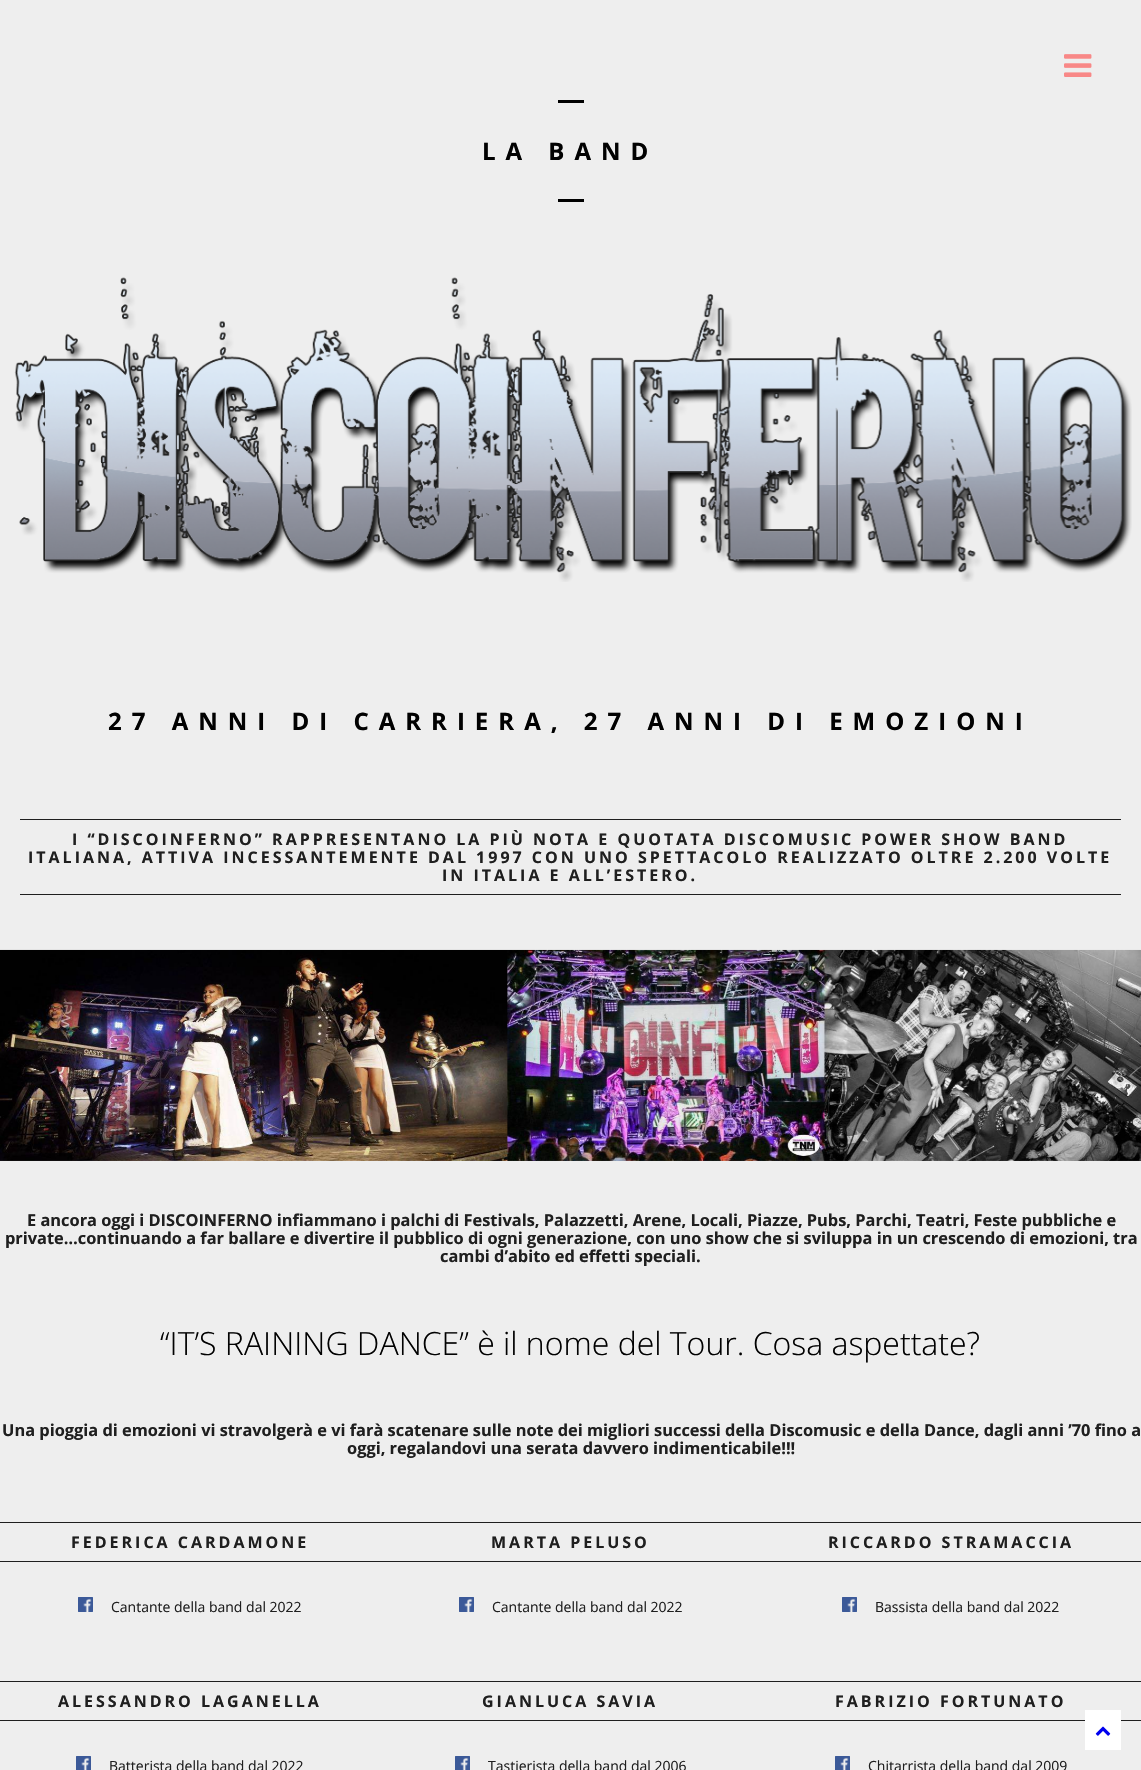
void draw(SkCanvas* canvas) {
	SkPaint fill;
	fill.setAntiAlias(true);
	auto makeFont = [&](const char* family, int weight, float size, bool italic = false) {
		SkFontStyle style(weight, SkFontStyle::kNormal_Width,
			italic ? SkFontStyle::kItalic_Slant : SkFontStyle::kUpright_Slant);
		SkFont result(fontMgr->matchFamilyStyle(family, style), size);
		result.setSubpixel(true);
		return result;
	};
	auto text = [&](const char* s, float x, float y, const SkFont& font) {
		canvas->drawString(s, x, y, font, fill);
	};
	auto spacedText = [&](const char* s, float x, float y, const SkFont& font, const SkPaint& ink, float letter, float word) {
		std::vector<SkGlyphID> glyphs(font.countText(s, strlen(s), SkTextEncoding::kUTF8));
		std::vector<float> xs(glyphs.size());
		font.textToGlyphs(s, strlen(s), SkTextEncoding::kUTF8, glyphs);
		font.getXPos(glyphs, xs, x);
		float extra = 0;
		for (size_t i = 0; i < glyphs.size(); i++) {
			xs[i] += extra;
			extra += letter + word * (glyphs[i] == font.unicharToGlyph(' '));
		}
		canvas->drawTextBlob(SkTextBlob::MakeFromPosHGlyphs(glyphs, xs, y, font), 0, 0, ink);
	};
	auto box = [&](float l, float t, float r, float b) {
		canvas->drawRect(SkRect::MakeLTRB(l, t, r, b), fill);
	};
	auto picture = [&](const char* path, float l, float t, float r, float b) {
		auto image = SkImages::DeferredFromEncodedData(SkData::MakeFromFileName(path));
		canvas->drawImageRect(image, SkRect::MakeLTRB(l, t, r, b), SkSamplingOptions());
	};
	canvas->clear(0xFFEEEEEE);
	picture("image0.png", 1064, 54, 1092, 77);
	fill.setColor(0xFF000000);
	box(558, 100, 584, 103);
	box(558, 199, 584, 202);
	picture("image1.png", 14, 277, 1132, 582);
	fill.setColor(0xFF1F1F1F);
	box(20, 819, 1121, 820);
	box(20, 894, 1121, 895);
	picture("image2.png", 0, 949, 1141, 1161);
	box(0, 1522, 1141, 1523);
	box(0, 1561, 1141, 1562);
	picture("image3.png", 78, 1597, 93, 1612);
	picture("image4.png", 459, 1597, 474, 1612);
	picture("image4.png", 842, 1597, 857, 1612);
	box(0, 1681, 1141, 1682);
	box(0, 1720, 1141, 1721);
	picture("image5.png", 76, 1756, 91, 1770);
	picture("image6.png", 455, 1756, 470, 1770);
	picture("image5.png", 835, 1756, 850, 1770);
	fill.setColor(0xFFFFFFFF);
	box(1085, 1710, 1121, 1750);
	picture("image7.png", 1095, 1726, 1111, 1736);
	auto font1 = makeFont("Open Sans", 700, 24);
	fill.setColor(0xFF010101);
	spacedText("LA BAND", 482, 160, font1, fill, 10, 0);
	spacedText("27 ANNI DI CARRIERA, 27 ANNI DI EMOZIONI", 108, 730, font1, fill, 10, 0);
	auto font2 = makeFont("Open Sans", 700, 16);
	fill.setColor(0xFF1F1F1F);
	spacedText("I “DISCOINFERNO” RAPPRESENTANO LA PIÙ NOTA E QUOTATA DISCOMUSIC POWER SHOW BAND", 72, 845, font2, fill, 3, 0);
	spacedText("ITALIANA, ATTIVA INCESSANTEMENTE DAL 1997 CON UNO SPETTACOLO REALIZZATO OLTRE 2.200 VOLTE", 28, 863, font2, fill, 3, 0);
	spacedText("IN ITALIA E ALL’ESTERO.", 442, 881, font2, fill, 3, 0);
	auto font3 = makeFont("Open Sans", 700, 16.38f);
	text("E ancora oggi i DISCOINFERNO infiammano i palchi di Festivals, Palazzetti, Arene, Locali, Piazze, Pubs, Parchi, Teatri, Feste pubbliche e", 27, 1226, font3);
	text("private…continuando a far ballare e divertire il pubblico di ogni generazione, con uno show che si sviluppa in un crescendo di emozioni, tra", 5, 1244, font3);
	text("cambi d’abito ed effetti speciali.", 440, 1262, font3);
	auto font4 = makeFont("Open Sans", 300, 32);
	fill.setColor(0xFF010101);
	text("“IT’S RAINING DANCE” è il nome del Tour. Cosa aspettate?", 160, 1355, font4);
	fill.setColor(0xFF1F1F1F);
	text("Una pioggia di emozioni vi stravolgerà e vi farà scatenare sulle note dei migliori successi della Discomusic e della Dance, dagli anni ’70 fino a", 2, 1436, font3);
	text("oggi, regalandovi una serata davvero indimenticabile!!!", 347, 1454, font3);
	spacedText("FEDERICA CARDAMONE", 71, 1548, font2, fill, 3, 0);
	auto font5 = makeFont("Open Sans", 400, 14);
	text("Cantante della band dal 2022", 111, 1612, font5);
	spacedText("MARTA PELUSO", 491, 1548, font2, fill, 3, 0);
	text("Cantante della band dal 2022", 492, 1612, font5);
	spacedText("RICCARDO STRAMACCIA", 828, 1548, font2, fill, 3, 0);
	text("Bassista della band dal 2022", 875, 1612, font5);
	spacedText("ALESSANDRO LAGANELLA", 58, 1707, font2, fill, 3, 0);
	text("Batterista della band dal 2022", 109, 1771, font5);
	spacedText("GIANLUCA SAVIA", 482, 1707, font2, fill, 3, 0);
	text("Tastierista della band dal 2006", 488, 1771, font5);
	spacedText("FABRIZIO FORTUNATO", 835, 1707, font2, fill, 3, 0);
	text("Chitarrista della band dal 2009", 868, 1771, font5);
}
